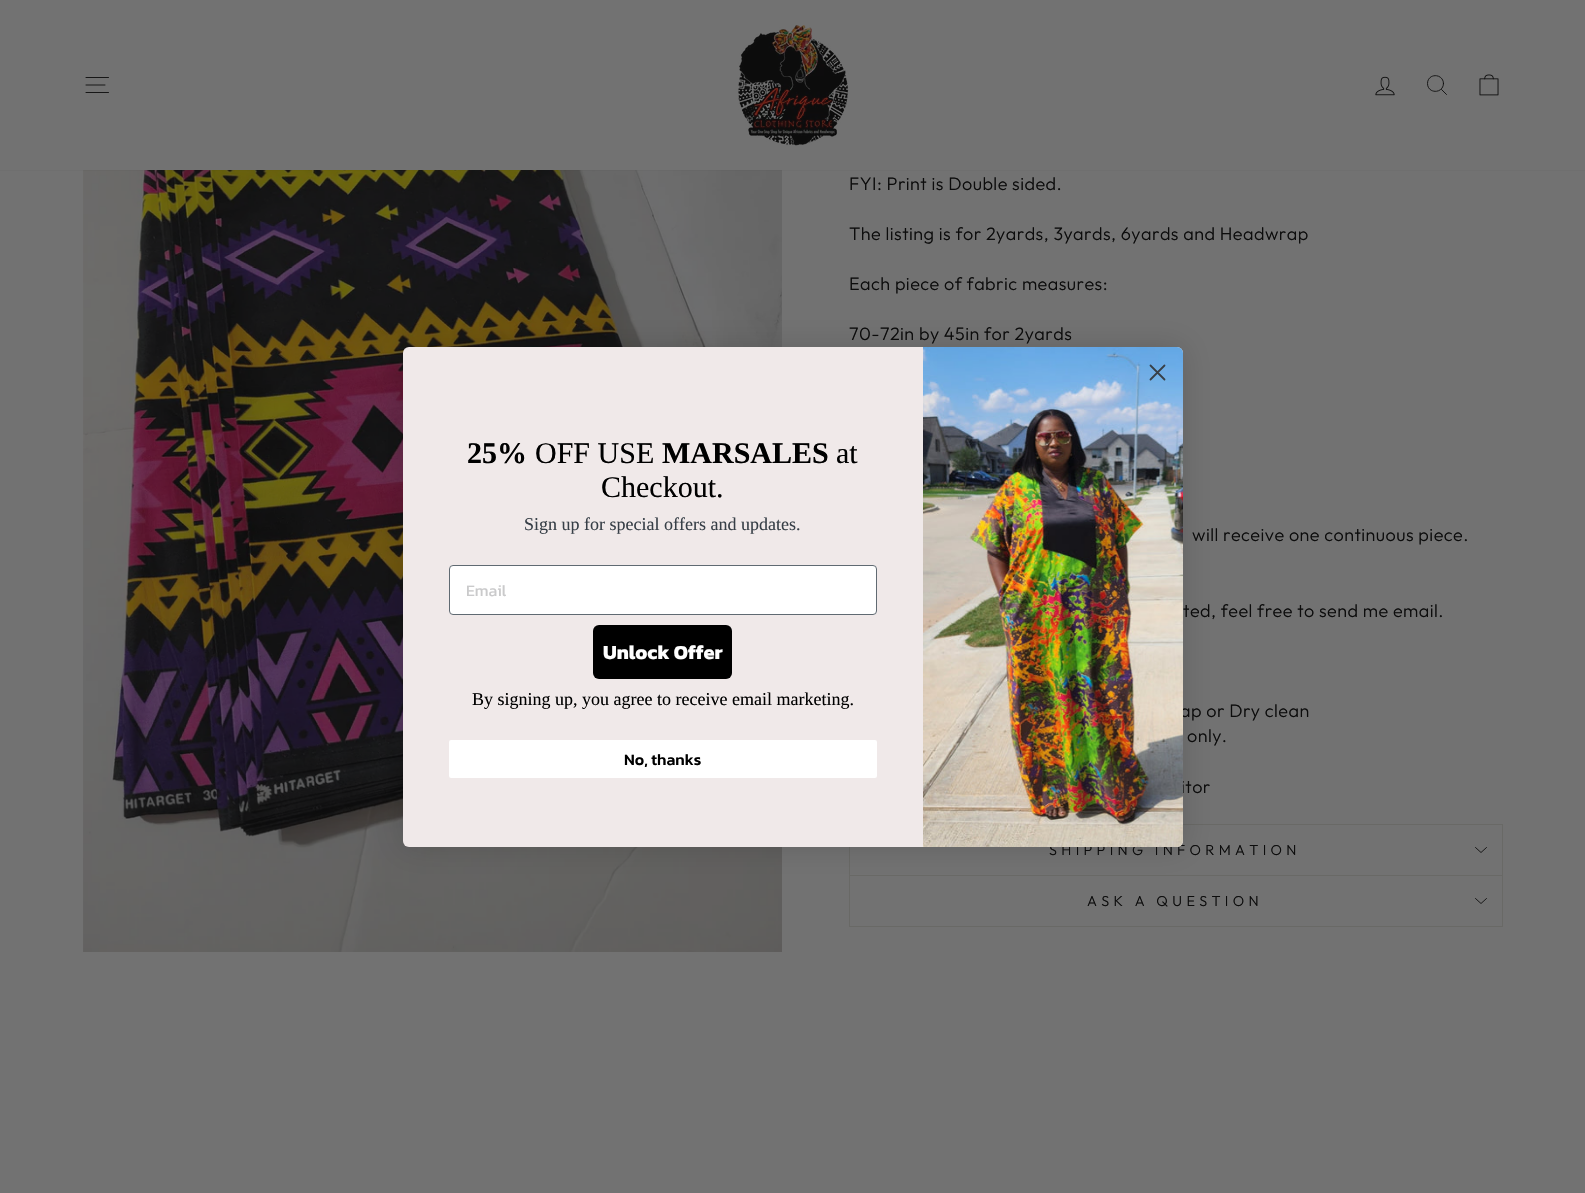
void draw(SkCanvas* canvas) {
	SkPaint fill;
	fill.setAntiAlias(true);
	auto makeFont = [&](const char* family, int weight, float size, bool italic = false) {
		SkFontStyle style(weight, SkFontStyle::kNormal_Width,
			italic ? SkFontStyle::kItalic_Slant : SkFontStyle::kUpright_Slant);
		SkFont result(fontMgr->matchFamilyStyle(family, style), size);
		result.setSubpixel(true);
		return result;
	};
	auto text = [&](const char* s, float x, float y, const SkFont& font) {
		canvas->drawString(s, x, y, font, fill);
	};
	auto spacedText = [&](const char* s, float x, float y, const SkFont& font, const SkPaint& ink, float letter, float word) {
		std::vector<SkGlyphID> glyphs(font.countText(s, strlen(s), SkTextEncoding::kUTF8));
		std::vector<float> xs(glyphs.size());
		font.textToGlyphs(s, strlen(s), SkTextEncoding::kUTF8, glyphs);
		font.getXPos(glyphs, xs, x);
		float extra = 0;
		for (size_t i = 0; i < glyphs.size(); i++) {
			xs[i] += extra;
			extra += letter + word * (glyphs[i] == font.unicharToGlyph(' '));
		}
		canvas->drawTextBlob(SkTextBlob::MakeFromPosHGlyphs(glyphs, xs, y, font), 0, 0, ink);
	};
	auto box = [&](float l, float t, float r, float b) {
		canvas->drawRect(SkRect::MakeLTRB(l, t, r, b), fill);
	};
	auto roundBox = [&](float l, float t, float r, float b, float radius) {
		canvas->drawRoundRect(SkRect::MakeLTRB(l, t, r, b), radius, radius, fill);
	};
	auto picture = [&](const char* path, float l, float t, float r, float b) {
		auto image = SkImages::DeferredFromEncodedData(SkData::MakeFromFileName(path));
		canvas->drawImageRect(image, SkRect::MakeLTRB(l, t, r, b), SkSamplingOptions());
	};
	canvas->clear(0xFF727272);
	picture("image4.png", 83, 170, 782, 952);
	fill.setColor(0x330C0C0C);
	fill.setMaskFilter(SkMaskFilter::MakeBlur(kNormal_SkBlurStyle, 0.5f));
	canvas->drawRect(SkRect::MakeLTRB(0, 0, 1585, 170), fill);
	fill.setMaskFilter(nullptr);
	fill.setColor(0xFF727272);
	box(0, 0, 1585, 170);
	fill.setStyle(SkPaint::kStroke_Style);
	fill.setStrokeWidth(0.9f);
	fill.setStrokeCap(SkPaint::kRound_Cap);
	fill.setStrokeJoin(SkPaint::kRound_Join);
	fill.setColor(0xFF0C0C0C);
	canvas->drawPath(SkPathBuilder().moveTo(86, 77.5f).lineTo(108.5f, 77.5f).moveTo(86, 85).lineTo(105, 85).moveTo(86, 92.5f).lineTo(108.5f, 92.5f).detach(), fill);
	picture("image0.png", 738, 25, 849, 146);
	picture("image1.png", 1375, 76, 1395, 96);
	canvas->drawPath(SkPathBuilder().moveTo(1443.5f, 83.5f).cubicTo(1443.5f, 94, 1427.5f, 94, 1427.5f, 83.5f).cubicTo(1427.5f, 73, 1443.5f, 73, 1443.5f, 83.5f).close().moveTo(1446.5f, 94.5f).lineTo(1441.5f, 89.5f).detach(), fill);
	picture("image2.png", 1479, 74, 1499, 96);
	fill.setStyle(SkPaint::kFill_Style);
	fill.setColor(0xFF696966);
	box(849, 875, 1503, 876);
	box(1183, 824, 1503, 825);
	box(849, 847, 850, 875);
	box(849, 876, 850, 926);
	fill.setColor(0x26000000);
	fill.setMaskFilter(SkMaskFilter::MakeBlur(kNormal_SkBlurStyle, 15));
	canvas->drawRoundRect(SkRect::MakeLTRB(403, 347, 1183, 847), 6, 6, fill);
	fill.setMaskFilter(nullptr);
	fill.setColor(0xFF696966);
	box(1502, 824, 1503, 875);
	fill.setStyle(SkPaint::kStroke_Style);
	fill.setColor(0xFF0C0C0C);
	canvas->drawPath(SkPathBuilder().moveTo(1475.5f, 847.5f).lineTo(1481, 852.5f).lineTo(1486.5f, 847.5f).detach(), fill);
	fill.setStyle(SkPaint::kFill_Style);
	fill.setColor(0xFF696966);
	box(849, 926, 1503, 927);
	box(1502, 876, 1503, 926);
	fill.setStyle(SkPaint::kStroke_Style);
	fill.setColor(0xFF0C0C0C);
	canvas->drawPath(SkPathBuilder().moveTo(1475.5f, 898.5f).lineTo(1481, 903.5f).lineTo(1486.5f, 898.5f).detach(), fill);
	auto font1 = makeFont("Outfit", 300, 18);
	fill.setStyle(SkPaint::kFill_Style);
	spacedText("FYI: Print is Double sided.", 849, 190, font1, fill, 0.45f, 0);
	spacedText("The listing is for 2yards, 3yards, 6yards and Headwrap", 849, 240, font1, fill, 0.45f, 0);
	spacedText("Each piece of fabric measures:", 849, 290, font1, fill, 0.45f, 0);
	spacedText("70-72in by 45in for 2yards", 849, 340, font1, fill, 0.45f, 0);
	spacedText("will receive one continuous piece.", 1192, 541, font1, fill, 0.45f, 0);
	spacedText("ted, feel free to send me email.", 1183, 617, font1, fill, 0.45f, 0);
	spacedText("ap or Dry clean", 1180, 717, font1, fill, 0.45f, 0);
	spacedText("only.", 1187, 742, font1, fill, 0.45f, 0);
	spacedText("itor", 1181, 793, font1, fill, 0.45f, 0);
	auto font2 = makeFont("Outfit", 300, 14.4f);
	spacedText("SHIPPING INFORMATION", 1049, 855, font2, fill, 4.3f, 0);
	fill.setColor(0xFFF0E9E9);
	roundBox(403, 347, 1183, 847, 6);
	picture("image3.png", 923, 347, 1183, 847);
	fill.setStyle(SkPaint::kStroke_Style);
	fill.setStrokeWidth(1.8f);
	fill.setColor(0xFF373F47);
	canvas->drawPath(SkPathBuilder().moveTo(1150.5f, 365.5f).lineTo(1164.5f, 379.5f).moveTo(1150.5f, 379.5f).lineTo(1164.5f, 365.5f).close().detach(), fill);
	fill.setStyle(SkPaint::kFill_Style);
	fill.setColor(0xFFFFFFFF);
	roundBox(449, 740, 877, 778, 2);
	auto font3 = makeFont("Kanit", 500, 16);
	fill.setColor(0xFF000000);
	text("No, thanks", 624, 765, font3);
	auto font4 = makeFont("Liberation Serif", 400, 18);
	text("By signing up, you agree to receive email marketing.", 472, 705, font4);
	roundBox(593, 625, 732, 679, 6);
	auto font5 = makeFont("Kanit", 700, 20);
	fill.setColor(0xFFFFFFFF);
	text("Unlock Offer", 603, 659, font5);
	canvas->drawRoundRect(SkRect::MakeLTRB(449.5f, 565.5f, 876.5f, 614.5f), 3.5f, 3.5f, fill);
	fill.setStyle(SkPaint::kStroke_Style);
	fill.setStrokeWidth(1);
	fill.setStrokeCap(SkPaint::kButt_Cap);
	fill.setStrokeJoin(SkPaint::kMiter_Join);
	fill.setColor(0xFF606A72);
	canvas->drawRoundRect(SkRect::MakeLTRB(449.5f, 565.5f, 876.5f, 614.5f), 3.5f, 3.5f, fill);
	auto font6 = makeFont("Kanit", 400, 16);
	fill.setStyle(SkPaint::kFill_Style);
	fill.setColor(0xFFCACACB);
	text("Email", 466, 596, font6);
	fill.setColor(0xFF373F47);
	text("Sign up for special offers and updates.", 524, 530, font4);
	auto font7 = makeFont("Liberation Serif", 400, 30);
	fill.setColor(0xFF000000);
	text("Checkout.", 601, 497, font7);
	text("at", 836, 463, font7);
	auto font8 = makeFont("Liberation Serif", 700, 30);
	text("MARSALES", 662, 463, font8);
	text("OFF USE", 535, 463, font7);
	text("25%", 467, 463, font8);
	fill.setColor(0xFF0C0C0C);
	spacedText("ASK A QUESTION", 1087, 906, font2, fill, 4.3f, 0);
}
